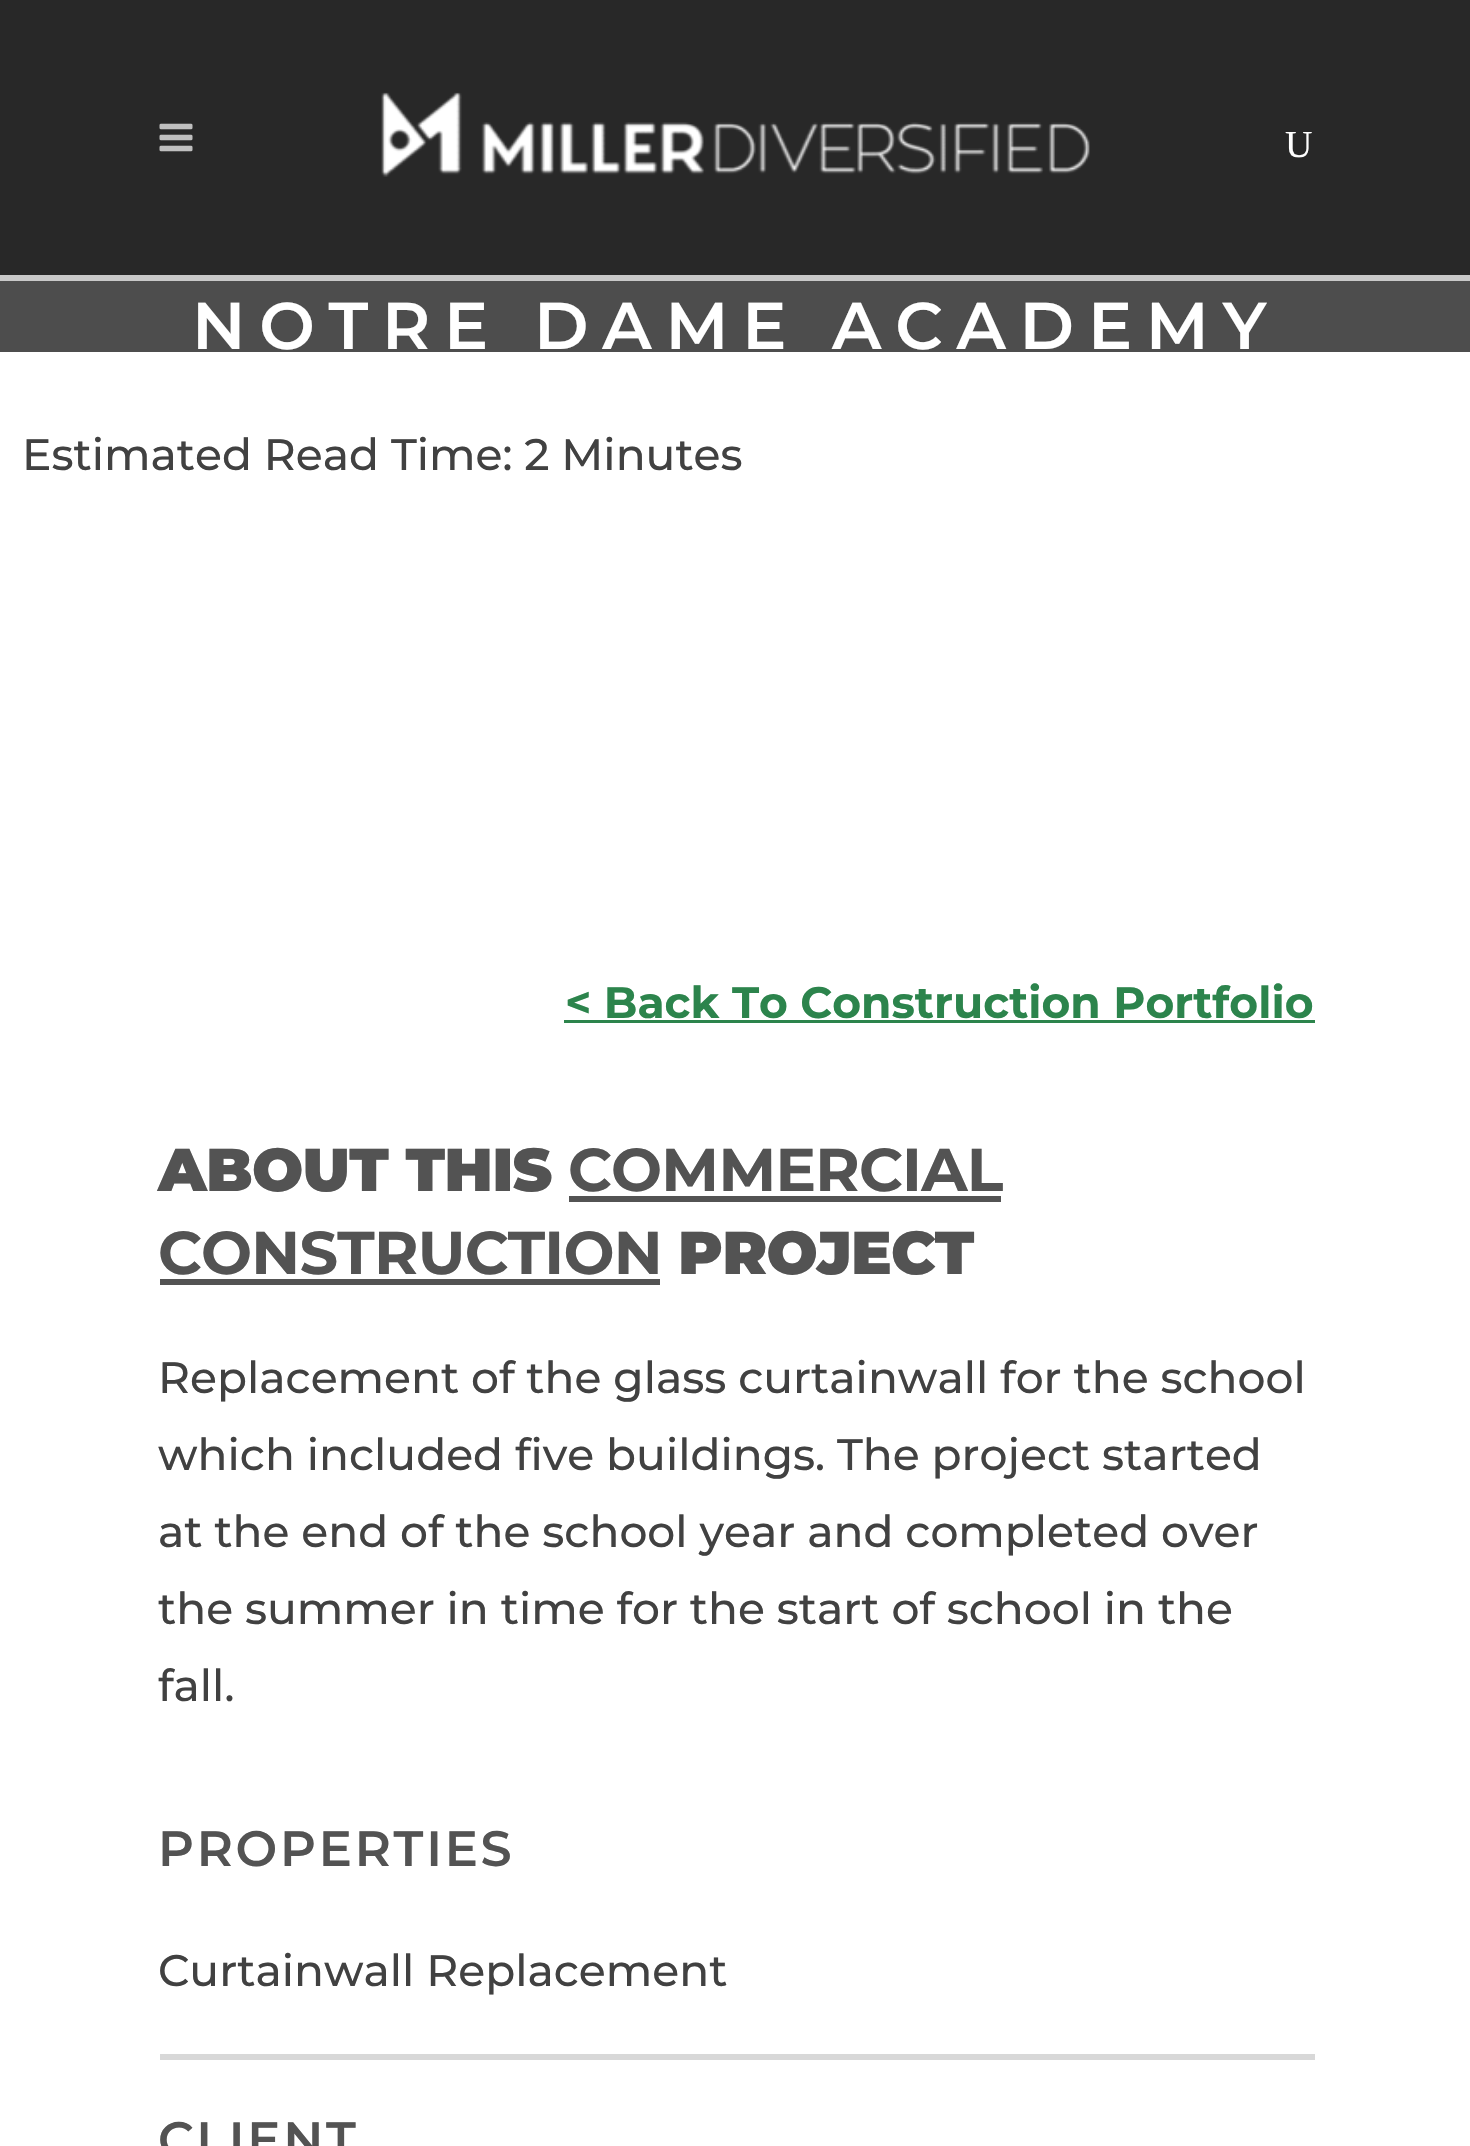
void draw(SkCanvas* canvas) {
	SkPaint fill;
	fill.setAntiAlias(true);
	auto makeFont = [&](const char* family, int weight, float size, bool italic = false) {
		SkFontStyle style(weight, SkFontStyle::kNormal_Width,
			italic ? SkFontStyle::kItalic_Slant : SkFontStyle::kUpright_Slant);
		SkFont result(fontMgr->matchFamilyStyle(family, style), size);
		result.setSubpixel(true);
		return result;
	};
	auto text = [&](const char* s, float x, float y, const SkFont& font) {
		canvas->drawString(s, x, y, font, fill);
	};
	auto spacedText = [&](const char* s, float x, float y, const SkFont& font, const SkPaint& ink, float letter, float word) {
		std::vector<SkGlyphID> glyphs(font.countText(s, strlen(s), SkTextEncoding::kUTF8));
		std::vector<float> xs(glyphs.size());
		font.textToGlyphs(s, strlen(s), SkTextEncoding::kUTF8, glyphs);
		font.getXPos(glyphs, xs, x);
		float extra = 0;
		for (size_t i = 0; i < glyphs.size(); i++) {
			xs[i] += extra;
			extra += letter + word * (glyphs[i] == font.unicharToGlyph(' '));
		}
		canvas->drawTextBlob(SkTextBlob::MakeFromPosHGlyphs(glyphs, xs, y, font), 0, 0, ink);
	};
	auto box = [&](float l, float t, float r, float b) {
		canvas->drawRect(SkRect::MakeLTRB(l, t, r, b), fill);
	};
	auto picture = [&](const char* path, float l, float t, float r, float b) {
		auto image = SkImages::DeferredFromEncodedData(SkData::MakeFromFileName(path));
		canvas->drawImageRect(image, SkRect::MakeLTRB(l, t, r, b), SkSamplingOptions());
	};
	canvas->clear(0xFFFFFFFF);
	fill.setColor(0xFF282828);
	box(0, 0, 1470, 275);
	fill.setColor(0xFFC8C8C8);
	box(0, 275, 1470, 281);
	picture("image0.png", 159, 123, 193, 152);
	picture("image1.png", 381, 92, 1090, 177);
	fill.setColor(0xFF4D4D4D);
	box(0, 281, 1470, 352);
	fill.setColor(0xFF2C844C);
	box(564, 1020, 1315, 1023);
	fill.setColor(0xFF535353);
	box(569, 1196, 1001, 1202);
	box(160, 1279, 660, 1285);
	fill.setColor(0xFFD8D8D8);
	box(160, 2054, 1315, 2060);
	auto font1 = makeFont("Liberation Serif", 400, 38);
	fill.setColor(0xFFFFFFFF);
	text("U", 1285, 157, font1);
	auto font2 = makeFont("Montserrat", 600, 66);
	spacedText("NOTRE DAME ACADEMY", 192, 349, font2, fill, 13.75f, 0);
	auto font3 = makeFont("Montserrat", 500, 44);
	fill.setColor(0xFF414141);
	text("Estimated Read Time: 2 Minutes", 22, 470, font3);
	auto font4 = makeFont("Montserrat", 700, 44);
	fill.setColor(0xFF2C844C);
	text("< Back To Construction Portfolio", 565, 1018, font4);
	auto font5 = makeFont("Montserrat", 900, 60.5f);
	fill.setColor(0xFF535353);
	spacedText("ABOUT THIS", 158, 1191, font5, fill, -0.75f, 0);
	auto font6 = makeFont("Montserrat", 700, 60.5f);
	spacedText("COMMERCIAL", 568, 1191, font6, fill, -0.75f, 0);
	spacedText("CONSTRUCTION", 158, 1274, font6, fill, -0.75f, 0);
	spacedText("PROJECT", 678, 1274, font5, fill, -0.75f, 0);
	fill.setColor(0xFF414141);
	text("Replacement of the glass curtainwall for the school", 158, 1393, font3);
	text("which included five buildings. The project started", 158, 1470, font3);
	text("at the end of the school year and completed over", 158, 1547, font3);
	text("the summer in time for the start of school in the", 158, 1624, font3);
	text("fall.", 158, 1701, font3);
	auto font7 = makeFont("Montserrat", 600, 49.5f);
	fill.setColor(0xFF535353);
	spacedText("PROPERTIES", 158, 1866, font7, fill, 2.75f, 0);
	fill.setColor(0xFF414141);
	text("Curtainwall Replacement", 158, 1986, font3);
	fill.setColor(0xFF535353);
	spacedText("CLIENT", 158, 2157, font7, fill, 2.75f, 0);
}
